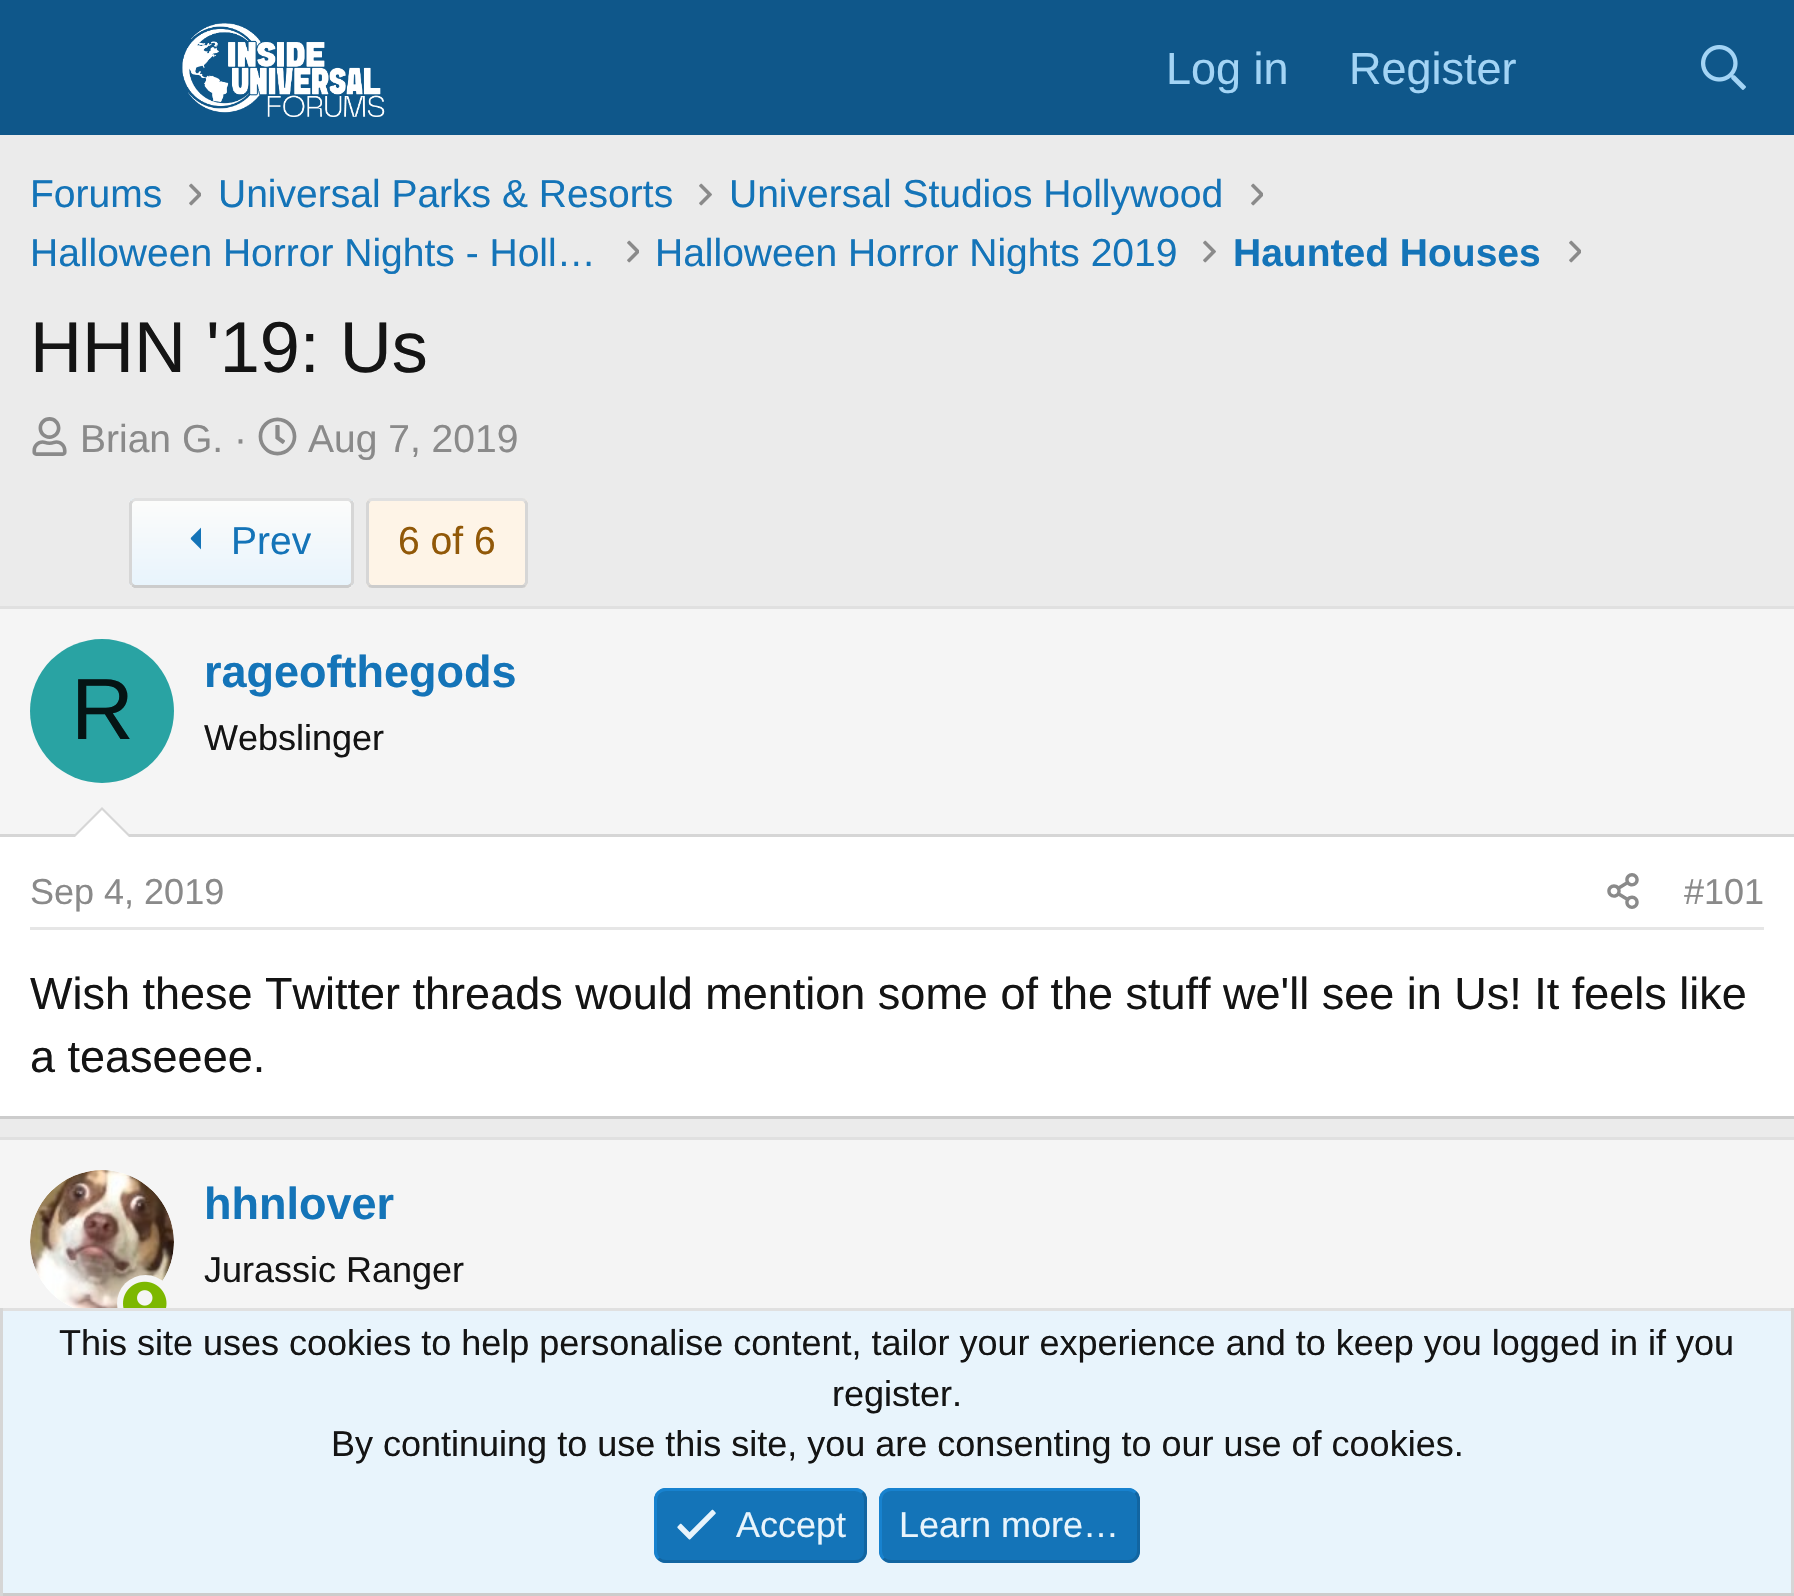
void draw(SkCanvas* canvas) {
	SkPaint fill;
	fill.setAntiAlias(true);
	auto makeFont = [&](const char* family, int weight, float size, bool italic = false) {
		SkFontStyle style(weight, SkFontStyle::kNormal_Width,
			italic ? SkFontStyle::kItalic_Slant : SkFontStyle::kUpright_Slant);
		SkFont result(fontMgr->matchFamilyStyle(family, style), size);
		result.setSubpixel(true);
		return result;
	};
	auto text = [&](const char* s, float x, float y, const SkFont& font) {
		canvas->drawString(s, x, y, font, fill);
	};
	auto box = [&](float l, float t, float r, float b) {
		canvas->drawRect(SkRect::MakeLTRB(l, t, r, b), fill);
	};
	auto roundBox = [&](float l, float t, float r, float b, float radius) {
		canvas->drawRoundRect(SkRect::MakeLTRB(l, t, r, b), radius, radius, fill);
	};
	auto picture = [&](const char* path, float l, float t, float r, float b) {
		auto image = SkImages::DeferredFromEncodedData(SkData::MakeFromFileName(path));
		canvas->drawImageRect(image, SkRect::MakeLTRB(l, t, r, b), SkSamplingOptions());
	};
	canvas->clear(0xFFEBEBEB);
	fill.setColor(0xFF0F578A);
	box(0, 0, 1794, 135);
	picture("image0.png", 182, 23, 385, 117);
	picture("image1.png", 1701, 45, 1746, 90);
	picture("image2.png", 189, 183, 201, 206);
	picture("image3.png", 699, 183, 712, 206);
	picture("image2.png", 1251, 183, 1263, 206);
	picture("image2.png", 627, 240, 639, 263);
	picture("image3.png", 1203, 240, 1216, 263);
	picture("image2.png", 1569, 240, 1581, 263);
	picture("image4.png", 32, 417, 67, 456);
	picture("image5.png", 258, 417, 297, 456);
	canvas->save();
	canvas->clipPath(SkPathBuilder().moveTo(135, 498).lineTo(348, 498).cubicTo(351.5f, 498, 354, 500.5f, 354, 504).lineTo(354, 582).cubicTo(354, 585.5f, 351.5f, 588, 348, 588).lineTo(135, 588).cubicTo(131.5f, 588, 129, 585.5f, 129, 582).lineTo(129, 504).cubicTo(129, 500.5f, 131.5f, 498, 135, 498).close().detach(), true);
	{
		const SkColor colors[] = {0xFFE8F4FC, 0xFFFCFCFB};
		const float stops[] = {0, 1};
		const SkPoint ends[] = {{242, 501}, {242, 417}};
		fill.setShader(SkGradientShader::MakeLinear(ends, colors, stops, 2, SkTileMode::kClamp));
		fill.setAlpha(255);
	}
	box(129, 498, 354, 501);
	{
		const SkColor colors[] = {0xFFE8F4FC, 0xFFFCFCFB};
		const float stops[] = {0, 1};
		const SkPoint ends[] = {{242, 585}, {242, 501}};
		fill.setShader(SkGradientShader::MakeLinear(ends, colors, stops, 2, SkTileMode::kClamp));
		fill.setAlpha(255);
	}
	box(129, 501, 354, 585);
	{
		const SkColor colors[] = {0xFFE8F4FC, 0xFFFCFCFB};
		const float stops[] = {0, 1};
		const SkPoint ends[] = {{242, 669}, {242, 585}};
		fill.setShader(SkGradientShader::MakeLinear(ends, colors, stops, 2, SkTileMode::kClamp));
		fill.setAlpha(255);
	}
	box(129, 585, 354, 588);
	canvas->restore();
	fill.setStyle(SkPaint::kStroke_Style);
	fill.setStrokeWidth(3);
	fill.setShader(nullptr);
	fill.setColor(0xFFE0E0E0);
	canvas->drawPath(SkPathBuilder().moveTo(132, 501).lineTo(135, 499.5f).lineTo(348.5f, 499.5f).lineTo(351, 501).detach(), fill);
	fill.setColor(0xFFD6D6D6);
	canvas->drawPath(SkPathBuilder().moveTo(351, 501).lineTo(352.5f, 503.5f).lineTo(352.5f, 582.5f).lineTo(351, 585).detach(), fill);
	fill.setColor(0xFFCCCCCC);
	canvas->drawPath(SkPathBuilder().moveTo(351, 585).lineTo(348, 586.5f).lineTo(134.5f, 586.5f).lineTo(132, 585).detach(), fill);
	fill.setColor(0xFFD6D6D6);
	canvas->drawPath(SkPathBuilder().moveTo(132, 585).lineTo(130.5f, 582.5f).lineTo(130.5f, 503.5f).lineTo(132, 501).detach(), fill);
	picture("image6.png", 190, 527, 201, 550);
	fill.setStyle(SkPaint::kFill_Style);
	fill.setColor(0xFFFEF4E7);
	roundBox(366, 498, 528, 588, 6);
	fill.setStyle(SkPaint::kStroke_Style);
	fill.setColor(0xFFE0E0E0);
	canvas->drawPath(SkPathBuilder().moveTo(369, 501).cubicTo(369.5f, 500, 371, 499.5f, 372, 499.5f).lineTo(522, 499.5f).cubicTo(523, 499.5f, 524.5f, 500, 525, 501).detach(), fill);
	fill.setColor(0xFFD6D6D6);
	canvas->drawPath(SkPathBuilder().moveTo(525, 501).lineTo(526.5f, 503.5f).lineTo(526.5f, 582.5f).lineTo(525, 585).detach(), fill);
	fill.setColor(0xFFCCCCCC);
	canvas->drawPath(SkPathBuilder().moveTo(525, 585).cubicTo(524.5f, 586, 523, 586.5f, 522, 586.5f).lineTo(372, 586.5f).cubicTo(371, 586.5f, 369.5f, 586, 369, 585).detach(), fill);
	fill.setColor(0xFFD6D6D6);
	canvas->drawPath(SkPathBuilder().moveTo(369, 585).lineTo(367.5f, 582.5f).lineTo(367.5f, 503.5f).lineTo(369, 501).detach(), fill);
	fill.setStyle(SkPaint::kFill_Style);
	fill.setColor(0xFFFFFFFF);
	box(0, 837, 1794, 1116);
	fill.setColor(0xFFE0E0E0);
	box(0, 606, 1794, 609);
	fill.setColor(0xFFCCCCCC);
	box(0, 1116, 1794, 1119);
	fill.setColor(0xFFF5F5F5);
	box(0, 609, 1794, 834);
	fill.setColor(0xFFD6D6D6);
	box(0, 834, 1794, 837);
	fill.setColor(0xFF29A3A3);
	canvas->drawCircle(102, 711, 72, fill);
	fill.setColor(0xFFD6D6D6);
	canvas->drawPath(SkPathBuilder().moveTo(132, 837).lineTo(72, 837).lineTo(102, 807).close().detach(), fill);
	fill.setColor(0xFFFFFFFF);
	canvas->drawPath(SkPathBuilder().moveTo(129, 837).lineTo(75, 837).lineTo(102, 810).close().detach(), fill);
	fill.setColor(0xFFE6E6E6);
	box(30, 927, 1764, 930);
	picture("image7.png", 1607, 873, 1639, 909);
	fill.setColor(0xFFE0E0E0);
	box(0, 1137, 1794, 1140);
	fill.setColor(0xFFF5F5F5);
	box(0, 1140, 1794, 1308);
	fill.setColor(0xFFFFFFFF);
	canvas->drawCircle(102, 1242, 72, fill);
	picture("image8.png", 30, 1170, 174, 1308);
	fill.setColor(0xFFF5F5F5);
	canvas->drawCircle(145.5f, 1303.5f, 28.5f, fill);
	picture("image9.png", 123, 1281, 167, 1308);
	fill.setColor(0xFFE8F4FC);
	box(3, 1311, 1791, 1593);
	fill.setColor(0xFFE0E0E0);
	box(0, 1308, 1794, 1311);
	fill.setColor(0xFFD6D6D6);
	box(1791, 1308, 1794, 1596);
	fill.setColor(0xFFCCCCCC);
	box(0, 1593, 1794, 1596);
	fill.setColor(0xFFD6D6D6);
	box(0, 1308, 3, 1596);
	fill.setColor(0xFF1474B8);
	roundBox(654, 1488, 867, 1563, 12);
	fill.setStyle(SkPaint::kStroke_Style);
	fill.setColor(0xFF1265A1);
	canvas->drawPath(SkPathBuilder().moveTo(862.5f, 1492.5f).cubicTo(864.5f, 1494.5f, 865.5f, 1497, 865.5f, 1500).lineTo(865.5f, 1551).cubicTo(865.5f, 1554, 864.5f, 1556.5f, 862.5f, 1558.5f).cubicTo(860.5f, 1560.5f, 858, 1561.5f, 855, 1561.5f).lineTo(666, 1561.5f).cubicTo(663, 1561.5f, 660.5f, 1560.5f, 658.5f, 1558.5f).detach(), fill);
	fill.setColor(0xFF1782CF);
	canvas->drawPath(SkPathBuilder().moveTo(658.5f, 1558.5f).cubicTo(656.5f, 1556.5f, 655.5f, 1554, 655.5f, 1551).lineTo(655.5f, 1500).cubicTo(655.5f, 1497, 656.5f, 1494.5f, 658.5f, 1492.5f).cubicTo(660.5f, 1490.5f, 663, 1489.5f, 666, 1489.5f).lineTo(855, 1489.5f).cubicTo(858, 1489.5f, 860.5f, 1490.5f, 862.5f, 1492.5f).detach(), fill);
	picture("image10.png", 677, 1509, 716, 1540);
	fill.setStyle(SkPaint::kFill_Style);
	fill.setColor(0xFF1474B8);
	roundBox(879, 1488, 1140, 1563, 12);
	fill.setStyle(SkPaint::kStroke_Style);
	fill.setColor(0xFF1265A1);
	canvas->drawPath(SkPathBuilder().moveTo(1135.5f, 1492.5f).cubicTo(1137.5f, 1494.5f, 1138.5f, 1497, 1138.5f, 1500).lineTo(1138.5f, 1551).cubicTo(1138.5f, 1554, 1137.5f, 1556.5f, 1135.5f, 1558.5f).cubicTo(1133.5f, 1560.5f, 1131, 1561.5f, 1128, 1561.5f).lineTo(891, 1561.5f).cubicTo(888, 1561.5f, 885.5f, 1560.5f, 883.5f, 1558.5f).detach(), fill);
	fill.setColor(0xFF1782CF);
	canvas->drawPath(SkPathBuilder().moveTo(883.5f, 1558.5f).cubicTo(881.5f, 1556.5f, 880.5f, 1554, 880.5f, 1551).lineTo(880.5f, 1500).cubicTo(880.5f, 1497, 881.5f, 1494.5f, 883.5f, 1492.5f).cubicTo(885.5f, 1490.5f, 888, 1489.5f, 891, 1489.5f).lineTo(1128, 1489.5f).cubicTo(1131, 1489.5f, 1133.5f, 1490.5f, 1135.5f, 1492.5f).detach(), fill);
	auto font1 = makeFont("Liberation Sans", 400, 45);
	fill.setStyle(SkPaint::kFill_Style);
	fill.setColor(0xFFA3D4F5);
	text("Log in", 1166, 84, font1);
	text("Register", 1349, 84, font1);
	auto font2 = makeFont("Liberation Sans", 400, 39);
	fill.setColor(0xFF1474B8);
	text("Forums", 30, 207, font2);
	text("Universal Parks & Resorts", 218, 207, font2);
	text("Universal Studios Hollywood", 729, 207, font2);
	text("Halloween Horror Nights - Holl…", 30, 266, font2);
	text("Halloween Horror Nights 2019", 655, 266, font2);
	auto font3 = makeFont("Liberation Sans", 700, 39);
	text("Haunted Houses", 1233, 266, font3);
	auto font4 = makeFont("Liberation Sans", 400, 72);
	fill.setColor(0xFF141414);
	text("HHN '19: Us", 30, 372, font4);
	fill.setColor(0xFF8A8A8A);
	text("Brian G. ·", 80, 452, font2);
	text("Aug 7, 2019", 308, 452, font2);
	fill.setColor(0xFF1474B8);
	text("Prev", 231, 554, font2);
	fill.setColor(0xFF915808);
	text("6 of 6", 398, 554, font2);
	auto font5 = makeFont("Liberation Sans", 400, 87);
	fill.setColor(0xFF051414);
	text("R", 71, 739, font5);
	auto font6 = makeFont("Liberation Sans", 700, 45);
	fill.setColor(0xFF1474B8);
	text("rageofthegods", 204, 687, font6);
	auto font7 = makeFont("Liberation Sans", 400, 36);
	fill.setColor(0xFF141414);
	text("Webslinger", 204, 750, font7);
	fill.setColor(0xFF8A8A8A);
	text("Sep 4, 2019", 30, 904, font7);
	text("#101", 1684, 904, font7);
	fill.setColor(0xFF141414);
	text("Wish these Twitter threads would mention some of the stuff we'll see in Us! It feels like", 30, 1009, font1);
	text("a teaseeee.", 30, 1072, font1);
	fill.setColor(0xFF1474B8);
	text("hhnlover", 204, 1219, font6);
	fill.setColor(0xFF141414);
	text("Jurassic Ranger", 204, 1282, font7);
	text("This site uses cookies to help personalise content, tailor your experience and to keep you logged in if you", 59, 1355, font7);
	text("register.", 832, 1406, font7);
	text("By continuing to use this site, you are consenting to our use of cookies.", 331, 1456, font7);
	fill.setColor(0xFFE8F4FC);
	text("Accept", 736, 1537, font7);
	text("Learn more…", 899, 1537, font7);
}
